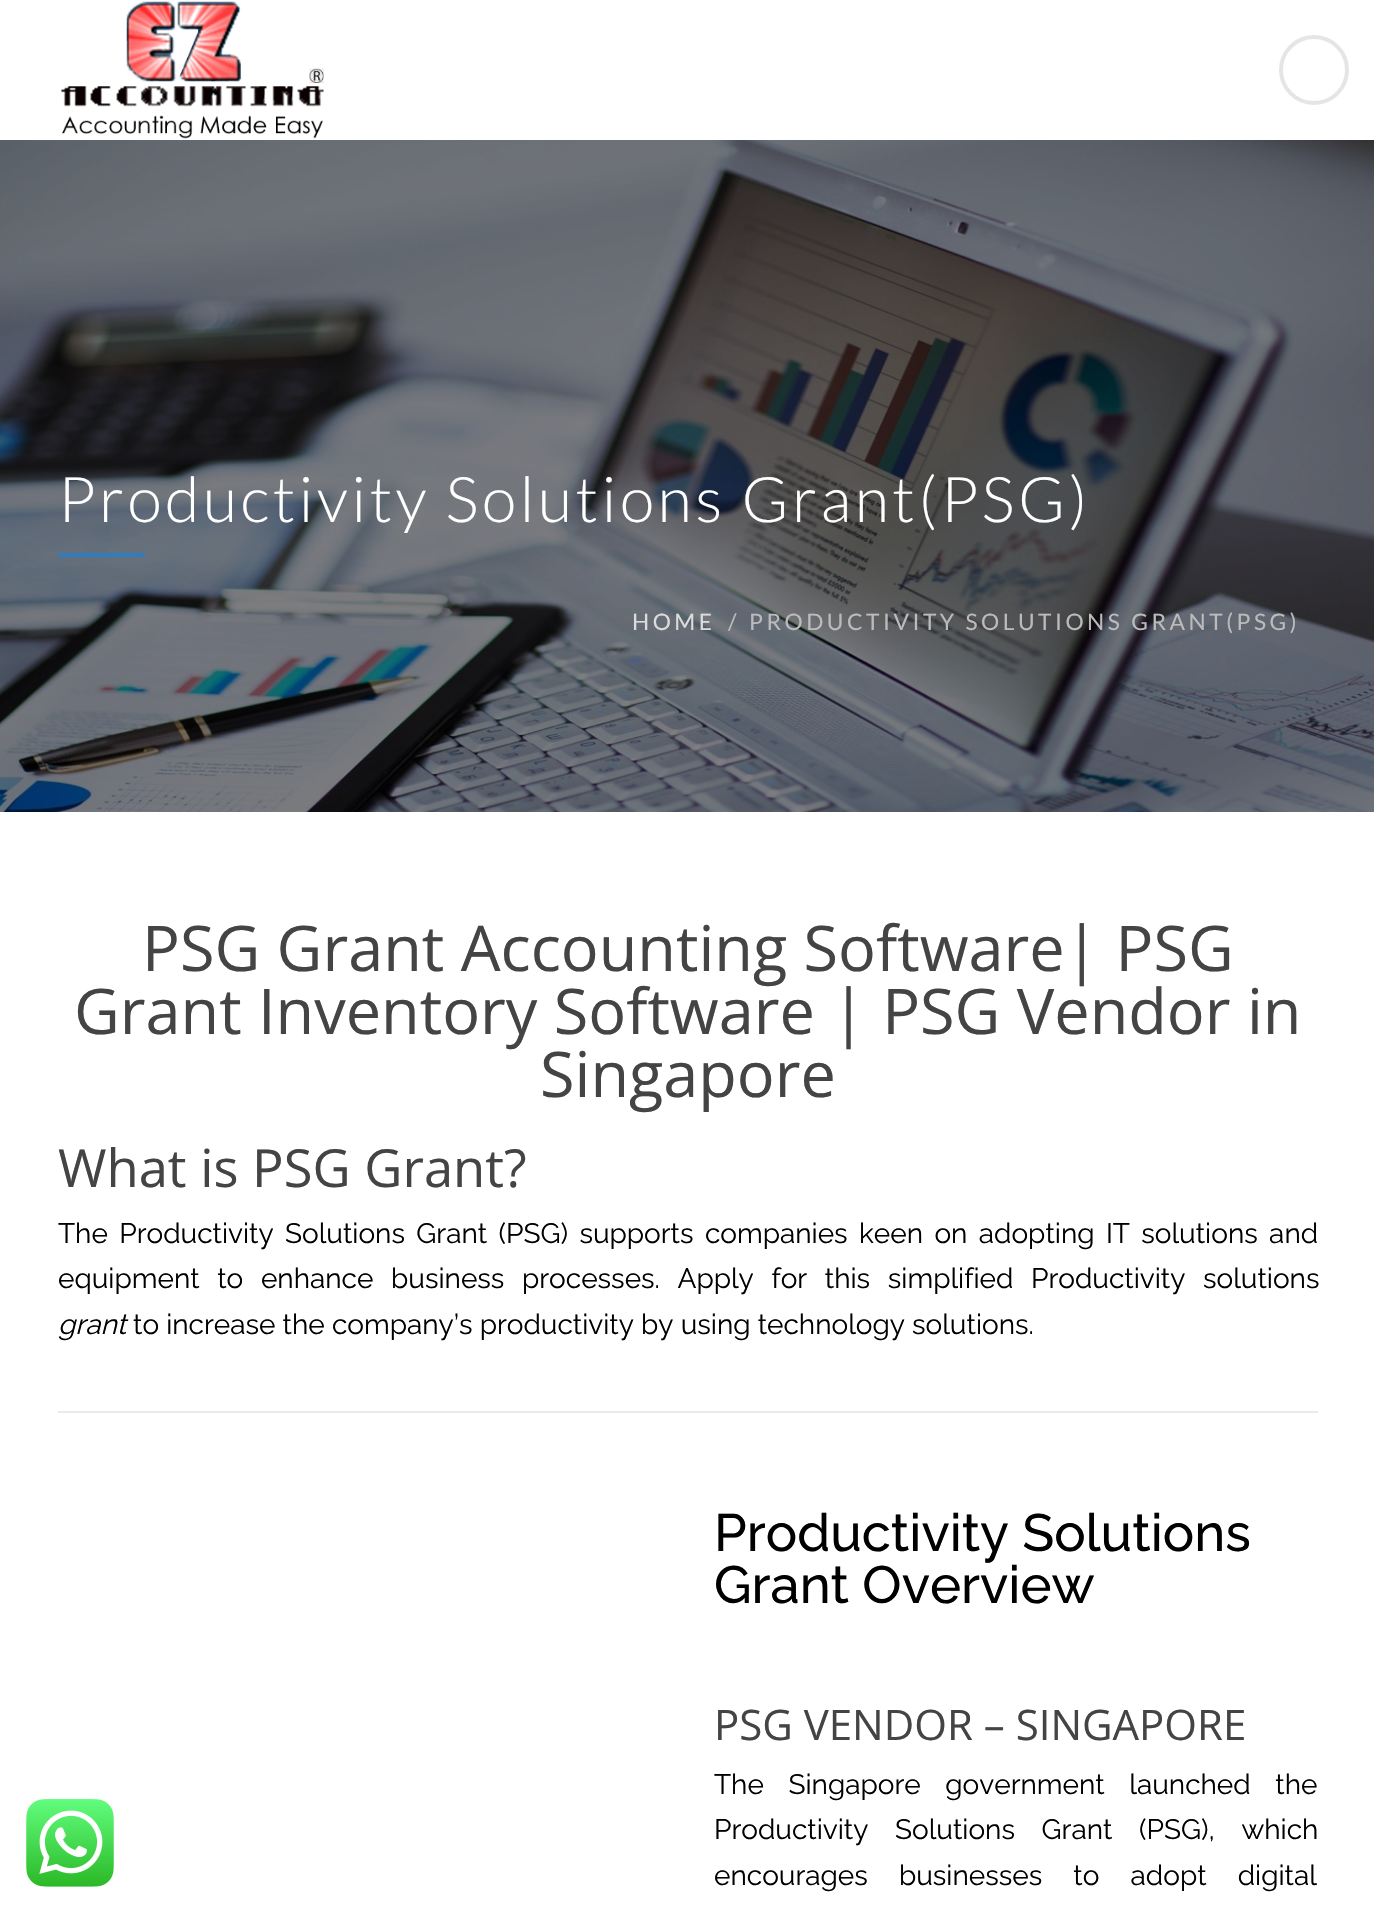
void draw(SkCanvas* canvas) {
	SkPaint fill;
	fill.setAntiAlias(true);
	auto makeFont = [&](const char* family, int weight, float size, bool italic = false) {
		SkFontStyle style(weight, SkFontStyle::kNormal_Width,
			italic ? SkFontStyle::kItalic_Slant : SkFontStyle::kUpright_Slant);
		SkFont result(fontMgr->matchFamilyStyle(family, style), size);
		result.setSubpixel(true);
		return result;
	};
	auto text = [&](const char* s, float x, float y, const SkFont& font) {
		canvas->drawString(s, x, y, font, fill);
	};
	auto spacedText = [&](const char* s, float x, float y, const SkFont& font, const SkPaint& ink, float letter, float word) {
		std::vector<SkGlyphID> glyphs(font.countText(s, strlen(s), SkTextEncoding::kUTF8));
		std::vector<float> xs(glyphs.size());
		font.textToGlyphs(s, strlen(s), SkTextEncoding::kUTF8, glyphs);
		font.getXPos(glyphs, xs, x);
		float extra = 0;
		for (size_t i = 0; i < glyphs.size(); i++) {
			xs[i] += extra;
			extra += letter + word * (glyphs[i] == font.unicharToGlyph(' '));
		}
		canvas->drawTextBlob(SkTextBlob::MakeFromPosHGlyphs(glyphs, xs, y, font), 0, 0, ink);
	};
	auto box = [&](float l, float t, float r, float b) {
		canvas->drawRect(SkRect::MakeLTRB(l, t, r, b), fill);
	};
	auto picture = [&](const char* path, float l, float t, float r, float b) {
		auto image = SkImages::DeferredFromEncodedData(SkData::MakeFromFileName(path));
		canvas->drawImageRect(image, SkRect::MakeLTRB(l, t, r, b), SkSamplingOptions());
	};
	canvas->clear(0xFFFFFFFF);
	picture("image0.png", 61, 1, 324, 139);
	fill.setStyle(SkPaint::kStroke_Style);
	fill.setStrokeWidth(4);
	fill.setColor(0xFFE5E5E5);
	canvas->drawCircle(1314, 70, 33, fill);
	picture("image1.png", 0, 140, 1374, 812);
	fill.setStyle(SkPaint::kFill_Style);
	fill.setColor(0xFF2F7CBF);
	box(58, 553, 145, 557);
	fill.setColor(0xFFEBEBEB);
	box(58, 1411, 1318, 1413);
	picture("image2.png", 26, 1799, 114, 1887);
	auto font1 = makeFont("Lato", 300, 63);
	fill.setColor(0xFFFFFFFF);
	spacedText("Productivity Solutions Grant(PSG)", 58, 522, font1, fill, 3.5f, 0);
	auto font2 = makeFont("Lato", 400, 22.75f);
	fill.setColor(0xFFDBDBDB);
	spacedText("HOME", 632, 630, font2, fill, 3.5f, 0);
	fill.setColor(0xFFBBBBBB);
	spacedText("/", 728, 630, font2, fill, 3.5f, 0);
	spacedText("PRODUCTIVITY SOLUTIONS GRANT(PSG)", 749, 630, font2, fill, 3.5f, 0);
	auto font3 = makeFont("Open Sans", 400, 63);
	fill.setColor(0xFF444444);
	text("PSG Grant Accounting Software| PSG", 142, 971, font3);
	text("Grant Inventory Software | PSG Vendor in", 74, 1034, font3);
	text("Singapore", 540, 1097, font3);
	auto font4 = makeFont("Open Sans", 400, 52.5f);
	text("What is PSG Grant?", 58, 1187, font4);
	auto font5 = makeFont("Raleway", 400, 28);
	fill.setColor(0xFF000000);
	spacedText("The Productivity Solutions Grant (PSG) supports companies keen on adopting IT solutions and", 58, 1243, font5, fill, 0, 4.25f);
	spacedText("equipment to enhance business processes. Apply for this simplified Productivity solutions", 58, 1288, font5, fill, 0, 10.5f);
	auto font6 = makeFont("Raleway", 400, 28, true);
	text("grant", 58, 1334, font6);
	text("to increase the company’s productivity by using technology solutions.", 133, 1334, font5);
	auto font7 = makeFont("Raleway", 500, 52.5f);
	text("Productivity Solutions", 714, 1551, font7);
	text("Grant Overview", 714, 1603, font7);
	auto font8 = makeFont("Open Sans", 400, 42);
	fill.setColor(0xFF444444);
	text("PSG VENDOR – SINGAPORE", 714, 1740, font8);
	fill.setColor(0xFF000000);
	spacedText("The Singapore government launched the", 714, 1794, font5, fill, 0, 17.5f);
	spacedText("Productivity Solutions Grant (PSG), which", 714, 1839, font5, fill, 0, 19.5f);
	spacedText("encourages businesses to adopt digital", 714, 1885, font5, fill, 0, 24);
}
